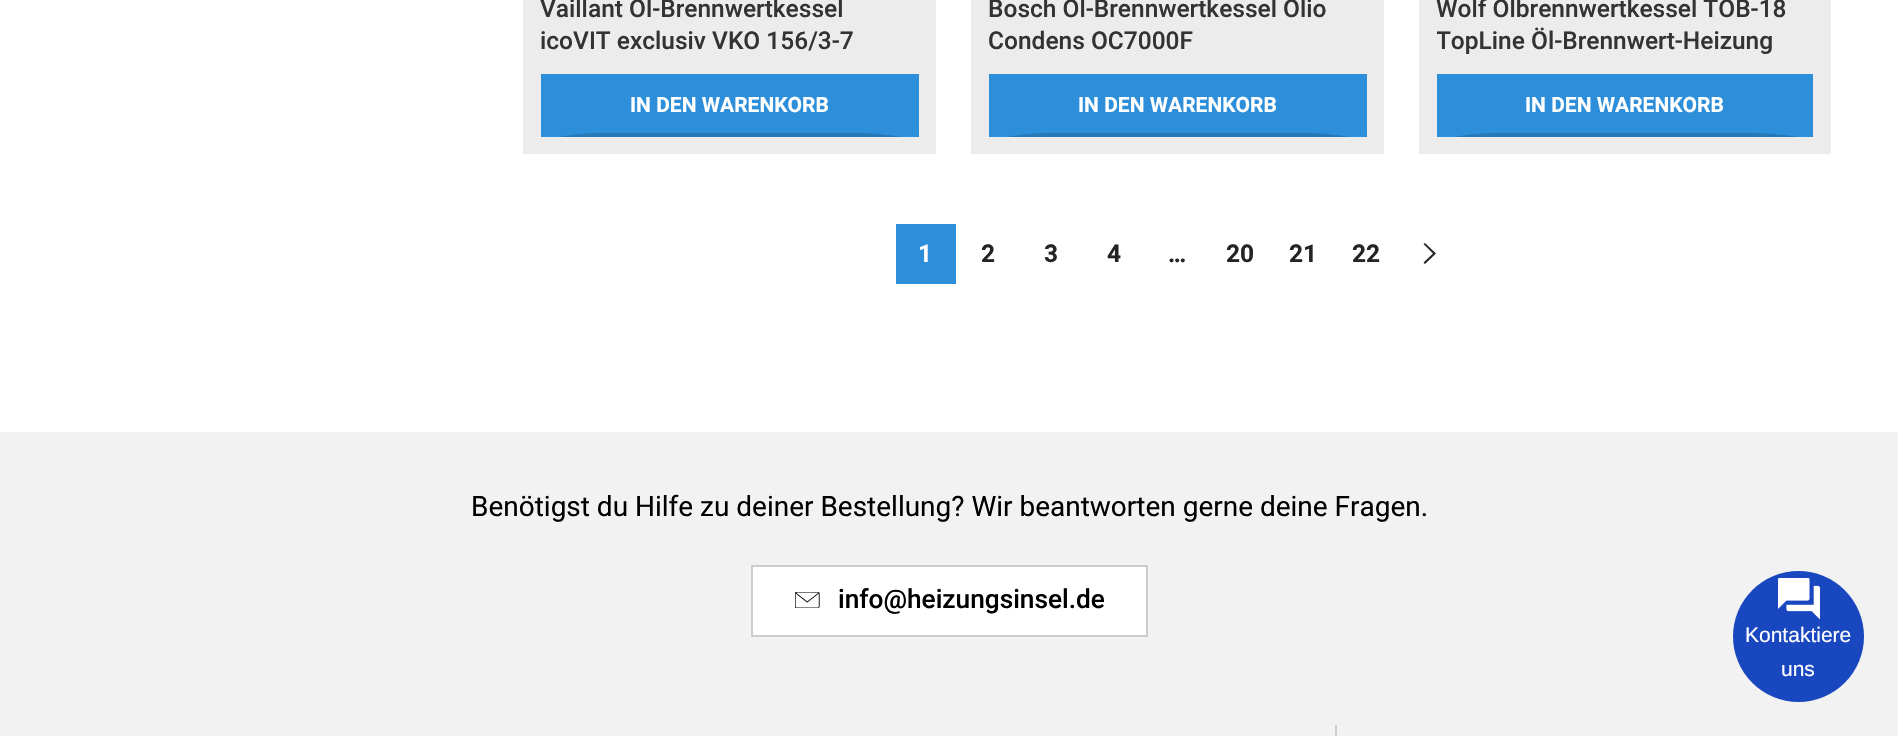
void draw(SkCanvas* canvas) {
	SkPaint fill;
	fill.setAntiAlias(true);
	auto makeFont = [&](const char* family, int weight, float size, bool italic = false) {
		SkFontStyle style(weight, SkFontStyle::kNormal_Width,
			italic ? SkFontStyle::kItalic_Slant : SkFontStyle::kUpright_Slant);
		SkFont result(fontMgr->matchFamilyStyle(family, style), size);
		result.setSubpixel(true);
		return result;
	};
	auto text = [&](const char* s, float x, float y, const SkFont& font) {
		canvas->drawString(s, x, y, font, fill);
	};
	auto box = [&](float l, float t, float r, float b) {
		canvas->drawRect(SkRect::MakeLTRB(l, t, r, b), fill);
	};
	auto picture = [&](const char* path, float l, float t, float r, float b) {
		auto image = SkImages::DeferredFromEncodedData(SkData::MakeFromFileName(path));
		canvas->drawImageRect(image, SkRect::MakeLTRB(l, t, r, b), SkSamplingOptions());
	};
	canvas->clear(0xFFFFFFFF);
	fill.setColor(0xFFECECEC);
	box(523, 0, 936, 154);
	fill.setColor(0xFF2D8EDA);
	box(541, 74, 919, 137);
	canvas->save();
	canvas->clipRect(SkRect::MakeLTRB(541, 74, 919, 137));
	fill.setColor(0xFF2679B9);
	canvas->drawPath(SkPathBuilder(SkPathFillType::kEvenOdd).moveTo(368, -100).lineTo(1092, -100).lineTo(1092, 310).lineTo(368, 310).close().moveTo(541, 70).lineTo(919, 70).lineTo(919, 122).cubicTo(919, 154, 922, 133, 856, 133).lineTo(604, 133).cubicTo(537, 133, 541, 154, 541, 122).close().detach(), fill);
	canvas->restore();
	fill.setColor(0xFFECECEC);
	box(971, 0, 1384, 154);
	fill.setColor(0xFF2D8EDA);
	box(989, 74, 1367, 137);
	canvas->save();
	canvas->clipRect(SkRect::MakeLTRB(989, 74, 1367, 137));
	fill.setColor(0xFF2679B9);
	canvas->drawPath(SkPathBuilder(SkPathFillType::kEvenOdd).moveTo(816, -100).lineTo(1540, -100).lineTo(1540, 310).lineTo(816, 310).close().moveTo(989, 70).lineTo(1367, 70).lineTo(1367, 122).cubicTo(1367, 154, 1370, 133, 1304, 133).lineTo(1052, 133).cubicTo(985, 133, 989, 154, 989, 122).close().detach(), fill);
	canvas->restore();
	fill.setColor(0xFFECECEC);
	box(1419, 0, 1831, 154);
	fill.setColor(0xFF2D8EDA);
	box(1437, 74, 1813, 137);
	canvas->save();
	canvas->clipRect(SkRect::MakeLTRB(1437, 74, 1813, 137));
	fill.setColor(0xFF2679B9);
	canvas->drawPath(SkPathBuilder(SkPathFillType::kEvenOdd).moveTo(1264, -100).lineTo(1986, -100).lineTo(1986, 310).lineTo(1264, 310).close().moveTo(1437, 70).lineTo(1750, 70).cubicTo(1816, 70, 1813, 49, 1813, 81).lineTo(1813, 112).cubicTo(1813, 154, 1820, 133, 1750, 133).lineTo(1499, 133).cubicTo(1433, 133, 1437, 154, 1437, 122).close().detach(), fill);
	canvas->restore();
	fill.setColor(0xFF2D8EDA);
	box(896, 224, 956, 284);
	fill.setColor(0xFF242424);
	canvas->drawPath(SkPathBuilder().moveTo(1425, 243).lineTo(1436, 253.5f).lineTo(1425, 264).lineTo(1423.5f, 262.5f).lineTo(1433, 253.5f).lineTo(1423.5f, 244).close().detach(), fill);
	fill.setColor(0xFFF2F2F2);
	box(0, 432, 1898, 736);
	fill.setColor(0xFFFFFFFF);
	canvas->drawRect(SkRect::MakeLTRB(752, 566, 1147, 636), fill);
	fill.setStyle(SkPaint::kStroke_Style);
	fill.setStrokeWidth(2);
	fill.setColor(0xFFCCCCCC);
	canvas->drawRect(SkRect::MakeLTRB(752, 566, 1147, 636), fill);
	picture("image0.png", 795, 592, 820, 608);
	fill.setStyle(SkPaint::kFill_Style);
	fill.setColor(0xFFCECECE);
	box(1335, 725, 1337, 736);
	fill.setColor(0xFF1847C0);
	canvas->drawCircle(1798.5f, 636.5f, 65.5f, fill);
	picture("image1.png", 1778, 578, 1820, 620);
	auto font1 = makeFont("Roboto", 500, 24.5f);
	fill.setColor(0xFF333333);
	text("Vaillant Öl-Brennwertkessel", 540, 17, font1);
	text("icoVIT exclusiv VKO 156/3-7", 540, 49, font1);
	auto font2 = makeFont("Roboto", 700, 21);
	fill.setColor(0xFFFFFFFF);
	text("IN DEN WARENKORB", 630, 112, font2);
	fill.setColor(0xFF333333);
	text("Bosch Öl-Brennwertkessel Olio", 988, 17, font1);
	text("Condens OC7000F", 988, 49, font1);
	fill.setColor(0xFFFFFFFF);
	text("IN DEN WARENKORB", 1078, 112, font2);
	fill.setColor(0xFF333333);
	text("Wolf Ölbrennwertkessel TOB-18", 1436, 17, font1);
	canvas->save();
	canvas->clipRect(SkRect::MakeLTRB(1437, 0, 1813, 56));
	text("TopLine Öl-Brennwert-Heizung", 1436, 49, font1);
	canvas->restore();
	fill.setColor(0xFFFFFFFF);
	text("IN DEN WARENKORB", 1525, 112, font2);
	auto font3 = makeFont("Roboto", 700, 24.5f);
	text("1", 918, 262, font3);
	fill.setColor(0xFF242424);
	text("2", 981, 262, font3);
	text("3", 1044, 262, font3);
	text("4", 1107, 262, font3);
	text("…", 1168, 262, font3);
	text("20", 1226, 262, font3);
	text("21", 1289, 262, font3);
	text("22", 1352, 262, font3);
	auto font4 = makeFont("Roboto", 400, 28);
	fill.setColor(0xFF000000);
	text("Benötigst du Hilfe zu deiner Bestellung? Wir beantworten gerne deine Fragen.", 471, 516, font4);
	auto font5 = makeFont("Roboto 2", 500, 26.25f);
	text("info@heizungsinsel.de", 838, 608, font5);
	auto font6 = makeFont("Liberation Sans", 400, 21);
	fill.setColor(0xFFFFFFFF);
	text("Kontaktiere", 1745, 642, font6);
	text("uns", 1781, 676, font6);
}
